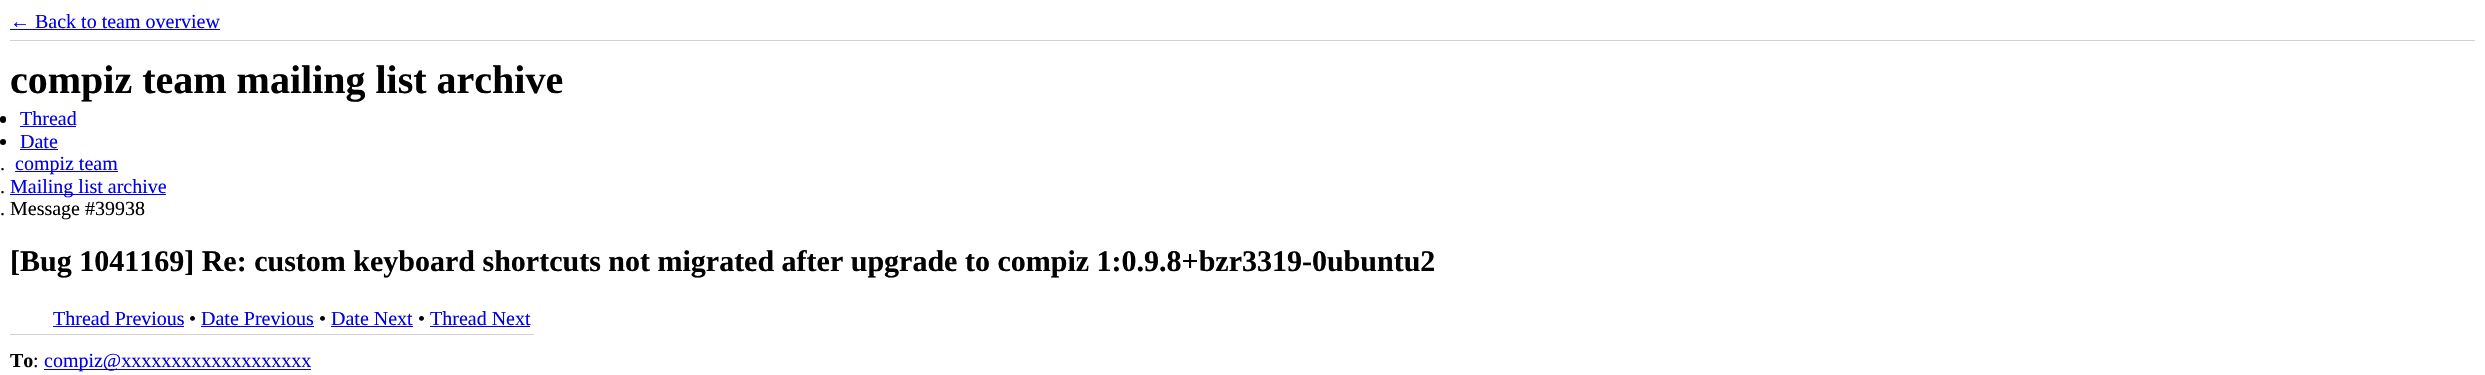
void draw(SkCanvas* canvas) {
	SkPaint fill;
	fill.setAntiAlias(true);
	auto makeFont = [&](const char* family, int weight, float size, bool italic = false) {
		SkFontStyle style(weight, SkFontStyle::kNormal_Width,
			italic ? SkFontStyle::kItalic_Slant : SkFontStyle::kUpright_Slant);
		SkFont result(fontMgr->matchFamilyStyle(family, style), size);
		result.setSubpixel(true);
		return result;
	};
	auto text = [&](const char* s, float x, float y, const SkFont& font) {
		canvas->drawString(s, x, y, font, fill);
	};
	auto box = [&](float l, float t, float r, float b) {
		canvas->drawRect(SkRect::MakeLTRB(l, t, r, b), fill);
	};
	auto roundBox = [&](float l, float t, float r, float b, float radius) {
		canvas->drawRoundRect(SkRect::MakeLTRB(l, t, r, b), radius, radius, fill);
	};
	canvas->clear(0xFFFFFFFF);
	fill.setColor(0xFFD2D2D2);
	box(10, 40, 2475, 41);
	fill.setColor(0xFF0000EE);
	box(10, 29, 220, 30);
	fill.setColor(0xFF000000);
	roundBox(0, 116, 6, 123, 3);
	fill.setColor(0xFF0000EE);
	box(20, 126, 76, 127);
	fill.setColor(0xFF000000);
	canvas->drawCircle(3, 142, 3, fill);
	fill.setColor(0xFF0000EE);
	box(20, 149, 58, 150);
	box(15, 171, 118, 172);
	box(10, 194, 166, 195);
	fill.setColor(0xFFD2D2D2);
	box(10, 334, 534, 335);
	fill.setColor(0xFF0000EE);
	box(53, 326, 184, 327);
	box(201, 326, 314, 327);
	box(331, 326, 413, 327);
	box(430, 326, 530, 327);
	box(44, 369, 311, 370);
	auto font1 = makeFont("Liberation Serif", 400, 20);
	text("← Back to team overview", 10, 28, font1);
	auto font2 = makeFont("Liberation Serif", 700, 40);
	fill.setColor(0xFF000000);
	text("compiz team mailing list archive", 10, 93, font2);
	fill.setColor(0xFF0000EE);
	text("Thread", 20, 125, font1);
	text("Date", 20, 148, font1);
	fill.setColor(0xFF000000);
	text(".", 0, 170, font1);
	fill.setColor(0xFF0000EE);
	text("compiz team", 15, 170, font1);
	fill.setColor(0xFF000000);
	text(".", 0, 193, font1);
	fill.setColor(0xFF0000EE);
	text("Mailing list archive", 10, 193, font1);
	fill.setColor(0xFF000000);
	text(". Message #39938", 0, 215, font1);
	auto font3 = makeFont("Liberation Serif", 700, 30);
	text("[Bug 1041169] Re: custom keyboard shortcuts not migrated after upgrade to compiz 1:0.9.8+bzr3319-0ubuntu2", 10, 271, font3);
	fill.setColor(0xFF0000EE);
	text("Thread Previous", 53, 325, font1);
	fill.setColor(0xFF000000);
	text("•", 189, 325, font1);
	fill.setColor(0xFF0000EE);
	text("Date Previous", 201, 325, font1);
	fill.setColor(0xFF000000);
	text("•", 319, 325, font1);
	fill.setColor(0xFF0000EE);
	text("Date Next", 331, 325, font1);
	fill.setColor(0xFF000000);
	text("•", 418, 325, font1);
	fill.setColor(0xFF0000EE);
	text("Thread Next", 430, 325, font1);
	auto font4 = makeFont("Liberation Serif", 700, 20);
	fill.setColor(0xFF000000);
	text("To", 10, 367, font4);
	text(":", 33, 367, font1);
	fill.setColor(0xFF0000EE);
	text("compiz@xxxxxxxxxxxxxxxxxxx", 44, 367, font1);
}
